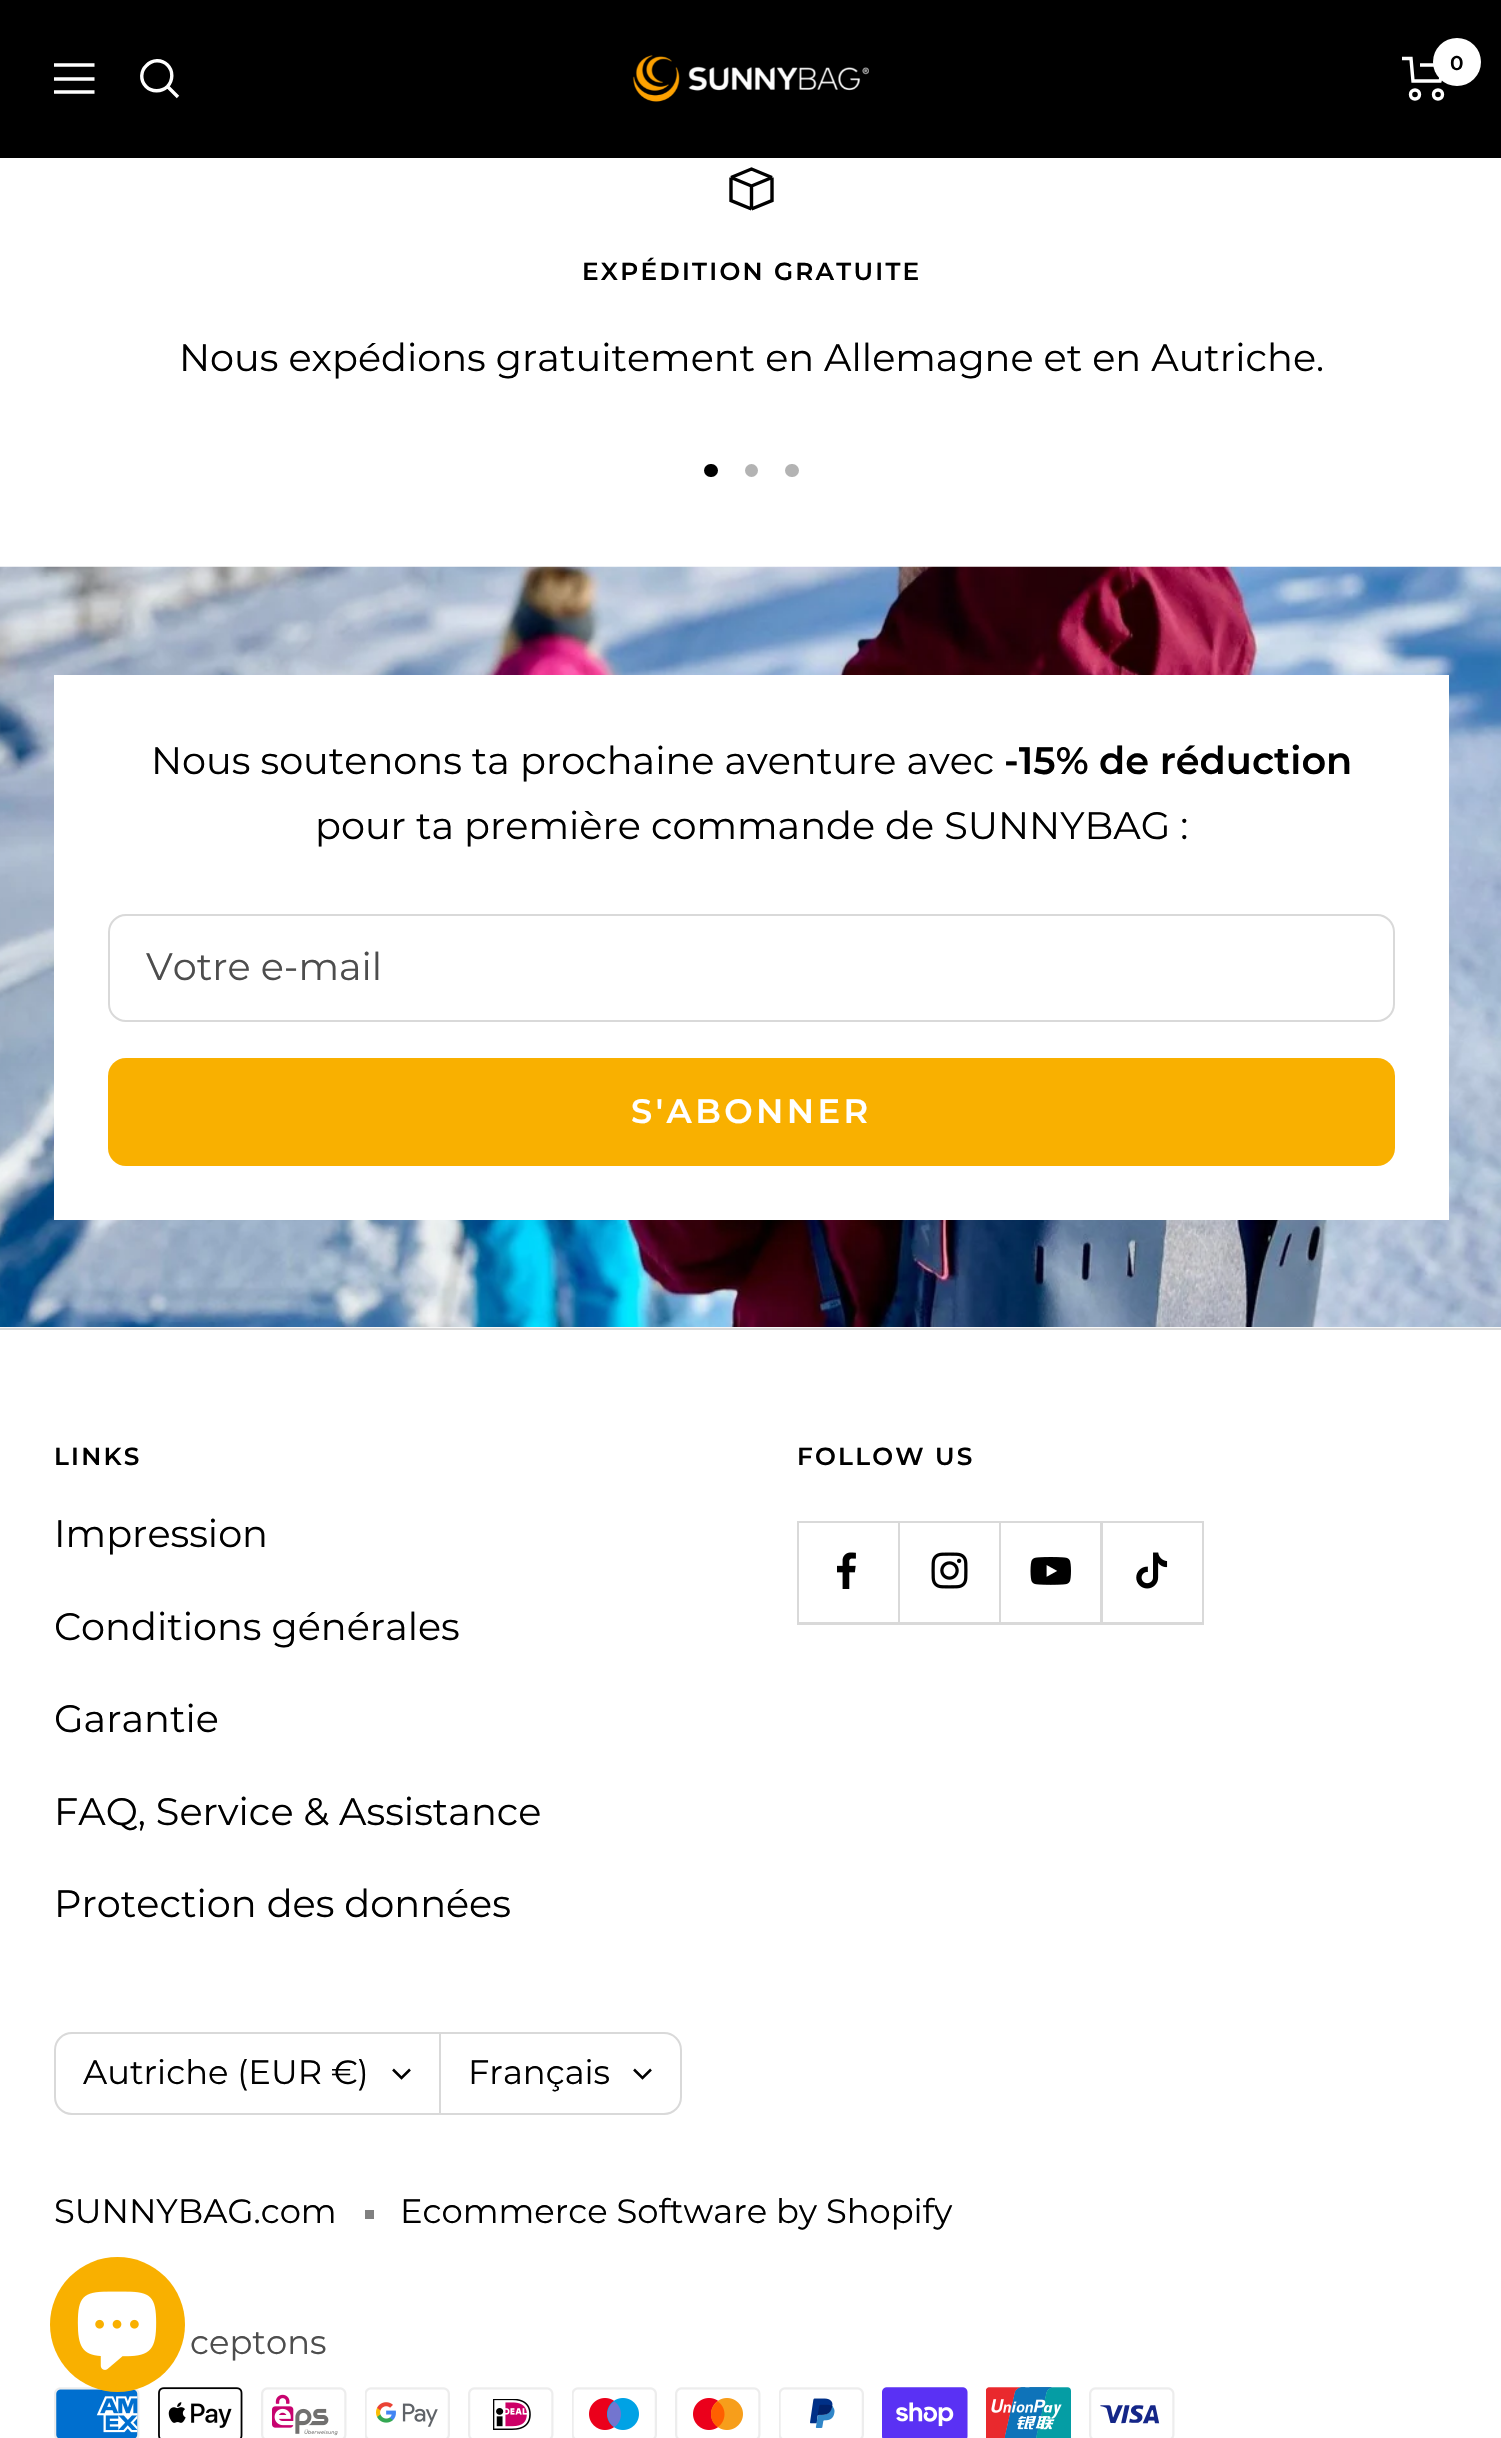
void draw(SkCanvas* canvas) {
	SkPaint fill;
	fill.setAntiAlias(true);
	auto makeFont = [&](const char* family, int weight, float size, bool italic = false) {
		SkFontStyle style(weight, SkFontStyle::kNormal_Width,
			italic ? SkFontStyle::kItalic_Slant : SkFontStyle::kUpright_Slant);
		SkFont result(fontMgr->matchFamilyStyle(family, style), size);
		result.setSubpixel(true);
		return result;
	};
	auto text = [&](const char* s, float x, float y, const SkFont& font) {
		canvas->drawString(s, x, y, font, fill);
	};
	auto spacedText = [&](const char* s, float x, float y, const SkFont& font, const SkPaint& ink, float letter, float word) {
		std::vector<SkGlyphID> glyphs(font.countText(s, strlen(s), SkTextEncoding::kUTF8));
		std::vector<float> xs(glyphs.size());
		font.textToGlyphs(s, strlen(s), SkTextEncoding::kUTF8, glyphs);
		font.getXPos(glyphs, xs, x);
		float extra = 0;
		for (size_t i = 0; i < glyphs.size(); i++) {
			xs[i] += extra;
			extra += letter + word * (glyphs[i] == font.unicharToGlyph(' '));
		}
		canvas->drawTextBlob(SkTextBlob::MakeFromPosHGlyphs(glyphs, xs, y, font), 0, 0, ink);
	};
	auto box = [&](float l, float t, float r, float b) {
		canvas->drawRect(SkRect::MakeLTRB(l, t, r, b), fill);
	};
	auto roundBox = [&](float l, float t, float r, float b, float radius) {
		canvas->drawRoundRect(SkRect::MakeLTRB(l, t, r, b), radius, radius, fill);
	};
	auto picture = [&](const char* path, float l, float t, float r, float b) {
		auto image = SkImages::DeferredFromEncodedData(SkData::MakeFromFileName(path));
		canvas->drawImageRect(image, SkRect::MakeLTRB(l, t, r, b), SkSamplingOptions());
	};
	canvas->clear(0xFFFFFFFF);
	fill.setColor(0xFF000000);
	box(0, 0, 1501, 158);
	fill.setStyle(SkPaint::kStroke_Style);
	fill.setStrokeWidth(3.4f);
	fill.setColor(0xFFFFFFFF);
	canvas->drawPath(SkPathBuilder().moveTo(54, 65).lineTo(94.5f, 65).moveTo(54, 92).lineTo(94.5f, 92).close().moveTo(54, 79).lineTo(94.5f, 79).close().detach(), fill);
	canvas->drawPath(SkPathBuilder().moveTo(167.5f, 86.5f).cubicTo(173, 80.5f, 173.5f, 71, 167.5f, 65).cubicTo(161.5f, 59, 152, 59.5f, 146.5f, 65.5f).cubicTo(140.5f, 71, 140, 80.5f, 146, 86.5f).cubicTo(152, 92.5f, 161.5f, 92, 167.5f, 86.5f).close().moveTo(167.5f, 86.5f).lineTo(178, 97).detach(), fill);
	picture("image0.png", 632, 55, 869, 102);
	canvas->drawPath(SkPathBuilder().moveTo(1402, 58.5f).lineTo(1411, 58.5f).lineTo(1413, 81).lineTo(1440, 81).lineTo(1444.5f, 65).lineTo(1420, 65).detach(), fill);
	canvas->drawCircle(1415, 94.5f, 4.5f, fill);
	canvas->drawCircle(1438, 94.5f, 4.5f, fill);
	fill.setStyle(SkPaint::kFill_Style);
	canvas->drawCircle(1457, 62, 24, fill);
	fill.setStyle(SkPaint::kStroke_Style);
	fill.setColor(0xFF000000);
	canvas->drawPath(SkPathBuilder().moveTo(751.5f, 209).lineTo(772, 200.5f).lineTo(772, 177.5f).moveTo(751.5f, 209).lineTo(731, 200.5f).lineTo(731, 177.5f).moveTo(751.5f, 209).lineTo(751.5f, 186).moveTo(772, 177.5f).lineTo(751.5f, 169).lineTo(731, 177.5f).moveTo(772, 177.5f).lineTo(751.5f, 186).moveTo(731, 177.5f).lineTo(751.5f, 186).detach(), fill);
	fill.setStyle(SkPaint::kFill_Style);
	roundBox(704, 464, 718, 477, 6.5f);
	fill.setColor(0xFFB3B3B3);
	canvas->drawCircle(751.5f, 470.5f, 6.5f, fill);
	roundBox(785, 464, 799, 477, 6.5f);
	fill.setColor(0xFFF7F7F7);
	box(0, 1327, 1501, 1328);
	picture("image1.png", 0, 566, 1501, 1327);
	fill.setColor(0xFFFFFFFF);
	box(54, 675, 1449, 1220);
	fill.setStyle(SkPaint::kStroke_Style);
	fill.setStrokeWidth(2);
	fill.setColor(0xFFD9D9D9);
	canvas->drawRoundRect(SkRect::MakeLTRB(109, 915, 1394, 1021), 17, 17, fill);
	fill.setStyle(SkPaint::kFill_Style);
	fill.setColor(0xFFF9B000);
	roundBox(108, 1058, 1395, 1166, 18);
	fill.setColor(0xFFD9D9D9);
	box(0, 1328, 1501, 1330);
	canvas->drawPath(SkPathBuilder().moveTo(799, 1622).lineTo(799, 1625).lineTo(900, 1625).lineTo(900, 1523).lineTo(898, 1523).lineTo(898, 1622).close().detach(), fill);
	canvas->drawPath(SkPathBuilder().moveTo(797, 1622).lineTo(797, 1625).lineTo(898, 1625).lineTo(898, 1523).lineTo(898, 1622).close().detach(), fill);
	box(797, 1521, 900, 1523);
	box(797, 1521, 799, 1622);
	picture("image2.png", 837, 1552, 856, 1589);
	canvas->drawPath(SkPathBuilder().moveTo(900, 1622).lineTo(900, 1625).lineTo(1001, 1625).lineTo(1001, 1523).lineTo(999, 1523).lineTo(999, 1622).close().detach(), fill);
	box(898, 1521, 1001, 1523);
	picture("image3.png", 931, 1552, 968, 1589);
	canvas->drawPath(SkPathBuilder().moveTo(1001, 1622).lineTo(1001, 1625).lineTo(1103, 1625).lineTo(1103, 1523).lineTo(1100, 1523).lineTo(1100, 1622).close().detach(), fill);
	box(999, 1521, 1103, 1523);
	picture("image4.png", 1030, 1557, 1071, 1585);
	canvas->drawPath(SkPathBuilder().moveTo(1103, 1622).lineTo(1103, 1625).lineTo(1204, 1625).lineTo(1204, 1523).lineTo(1202, 1523).lineTo(1202, 1622).close().detach(), fill);
	box(1100, 1521, 1204, 1523);
	picture("image5.png", 1136, 1552, 1168, 1589);
	fill.setStyle(SkPaint::kStroke_Style);
	canvas->drawPath(SkPathBuilder().moveTo(72, 2033).lineTo(440, 2033).lineTo(440, 2114).lineTo(72, 2114).cubicTo(62.5f, 2114, 55, 2106.5f, 55, 2097).lineTo(55, 2050).cubicTo(55, 2040.5f, 62.5f, 2033, 72, 2033).close().detach(), fill);
	fill.setStrokeWidth(2.5f);
	fill.setColor(0xFF000000);
	canvas->drawPath(SkPathBuilder().moveTo(393, 2069.5f).lineTo(401.5f, 2078).lineTo(410, 2069.5f).detach(), fill);
	fill.setStrokeWidth(2);
	fill.setColor(0xFFD9D9D9);
	canvas->drawPath(SkPathBuilder().moveTo(440, 2033).lineTo(664, 2033).cubicTo(673.5f, 2033, 681, 2040.5f, 681, 2050).lineTo(681, 2097).cubicTo(681, 2106.5f, 673.5f, 2114, 664, 2114).lineTo(440, 2114).close().detach(), fill);
	fill.setStrokeWidth(2.5f);
	fill.setColor(0xFF000000);
	canvas->drawPath(SkPathBuilder().moveTo(634, 2069.5f).lineTo(642.5f, 2078).lineTo(651, 2069.5f).detach(), fill);
	fill.setStyle(SkPaint::kFill_Style);
	fill.setColor(0xFF808080);
	box(365, 2210, 374, 2219);
	picture("image6.png", 54, 2387, 140, 2438);
	picture("image7.png", 158, 2387, 243, 2438);
	picture("image8.png", 261, 2387, 347, 2438);
	picture("image9.png", 365, 2387, 450, 2438);
	picture("image10.png", 468, 2387, 554, 2438);
	picture("image11.png", 572, 2387, 657, 2438);
	picture("image12.png", 675, 2387, 761, 2438);
	picture("image13.png", 779, 2387, 864, 2438);
	picture("image14.png", 882, 2387, 968, 2438);
	picture("image15.png", 986, 2387, 1071, 2438);
	picture("image16.png", 1089, 2387, 1175, 2438);
	fill.setColor(0xFFF9B000);
	canvas->drawCircle(117.5f, 2324.5f, 67.5f, fill);
	picture("image17.png", 77, 2291, 157, 2370);
	auto font1 = makeFont("Montserrat", 600, 20);
	fill.setColor(0xFF000000);
	text("0", 1450, 70, font1);
	auto font2 = makeFont("Montserrat", 600, 24.75f);
	spacedText("EXPÉDITION GRATUITE", 582, 280, font2, fill, 2.25f, 0);
	auto font3 = makeFont("Montserrat", 400, 38.25f);
	text("Nous expédions gratuitement en Allemagne et en Autriche.", 179, 371, font3);
	text("Nous soutenons ta prochaine aventure avec", 151, 774, font3);
	auto font4 = makeFont("Montserrat", 600, 38.25f);
	text("-15% de réduction", 1004, 774, font4);
	text("pour ta première commande de SUNNYBAG :", 315, 839, font3);
	fill.setColor(0xFF4D4D4D);
	text("Votre e-mail", 146, 980, font3);
	auto font5 = makeFont("Montserrat", 600, 33.75f);
	fill.setColor(0xFFFFFFFF);
	spacedText("S'ABONNER", 631, 1123, font5, fill, 3.4f, 0);
	fill.setColor(0xFF000000);
	spacedText("LINKS", 54, 1465, font2, fill, 2.25f, 0);
	text("Impression", 54, 1547, font3);
	text("Conditions générales", 54, 1640, font3);
	text("Garantie", 54, 1732, font3);
	text("FAQ, Service & Assistance", 54, 1825, font3);
	text("Protection des données", 54, 1917, font3);
	spacedText("FOLLOW US", 797, 1465, font2, fill, 2.25f, 0);
	auto font6 = makeFont("Montserrat", 400, 33.75f);
	text("Autriche (EUR €)", 83, 2084, font6);
	text("Français", 468, 2084, font6);
	text("SUNNYBAG.com", 54, 2223, font6);
	text("Ecommerce Software by Shopify", 400, 2223, font6);
	fill.setColor(0xFF4D4D4D);
	text("ceptons", 190, 2354, font6);
}
